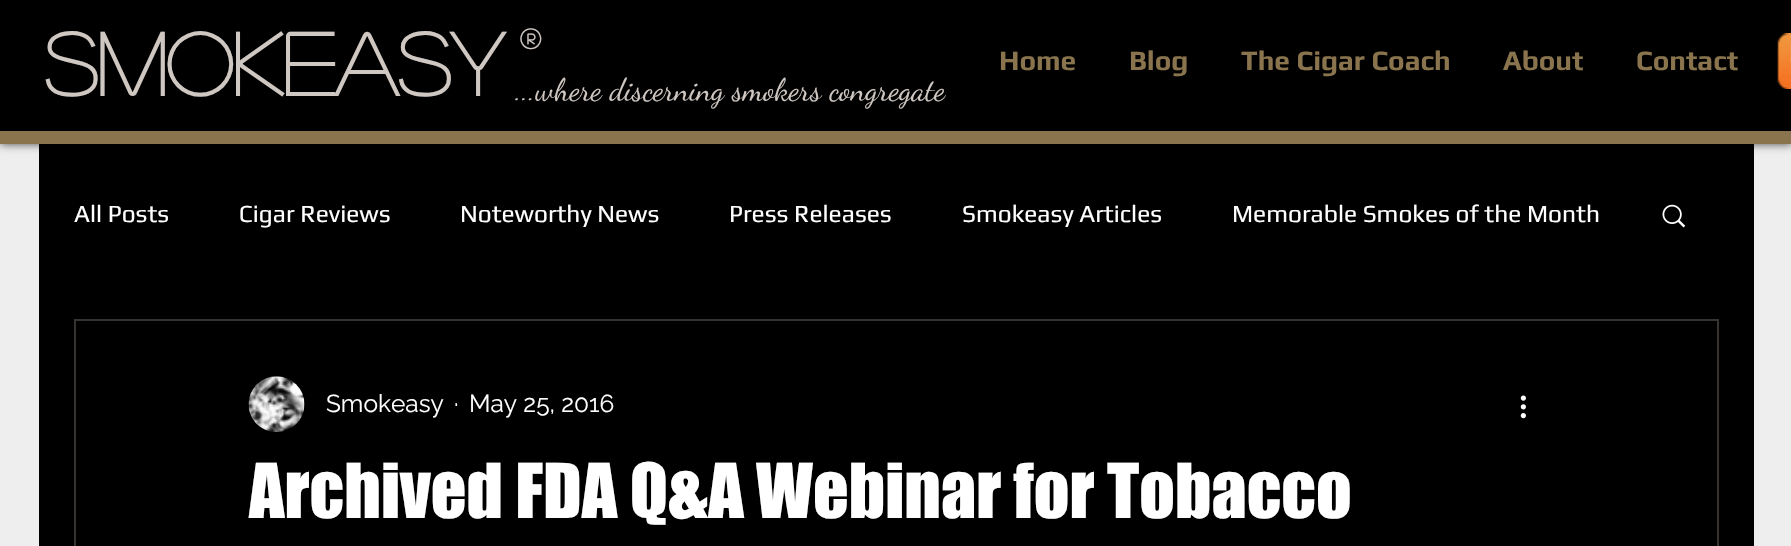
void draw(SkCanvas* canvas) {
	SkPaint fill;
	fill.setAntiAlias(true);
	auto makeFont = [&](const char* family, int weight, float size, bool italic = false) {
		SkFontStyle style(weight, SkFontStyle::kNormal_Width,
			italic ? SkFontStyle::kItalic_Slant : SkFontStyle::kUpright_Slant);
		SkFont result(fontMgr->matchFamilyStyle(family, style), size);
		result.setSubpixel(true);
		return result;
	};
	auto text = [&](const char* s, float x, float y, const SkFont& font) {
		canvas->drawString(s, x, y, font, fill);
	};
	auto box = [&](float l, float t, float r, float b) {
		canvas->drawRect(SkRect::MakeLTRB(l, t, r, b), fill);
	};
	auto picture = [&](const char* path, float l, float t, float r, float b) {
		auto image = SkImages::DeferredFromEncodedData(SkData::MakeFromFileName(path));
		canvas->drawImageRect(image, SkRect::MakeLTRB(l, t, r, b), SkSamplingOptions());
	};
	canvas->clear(0xFFEEEEEE);
	fill.setColor(0xFF000000);
	box(39, 144, 1754, 546);
	fill.setColor(0xB3000000);
	fill.setMaskFilter(SkMaskFilter::MakeBlur(kNormal_SkBlurStyle, 4.5f));
	canvas->drawRect(SkRect::MakeLTRB(0, 0, 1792, 144), fill);
	fill.setMaskFilter(nullptr);
	fill.setColor(0xFF000000);
	box(0, 0, 1791, 131);
	fill.setColor(0xFF89744D);
	box(0, 131, 1791, 144);
	picture("image0.png", 1777, 33, 1791, 89);
	picture("image1.png", 1662, 204, 1686, 228);
	fill.setStyle(SkPaint::kStroke_Style);
	fill.setStrokeWidth(2);
	fill.setColor(0xFF373330);
	canvas->drawRect(SkRect::MakeLTRB(75, 320, 1718, 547), fill);
	picture("image2.png", 248, 376, 305, 433);
	picture("image3.png", 1520, 395, 1526, 419);
	auto font1 = makeFont("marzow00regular", 700, 87.5f);
	fill.setStyle(SkPaint::kFill_Style);
	fill.setColor(0xFFCFC7C2);
	text("smokeasy", 44, 96, font1);
	auto font2 = makeFont("marzow00regular", 700, 28);
	text("®", 520, 49, font2);
	auto font3 = makeFont("Play", 700, 28);
	fill.setColor(0xFF89744D);
	text("Home", 999, 70, font3);
	text("Blog", 1129, 70, font3);
	text("The Cigar Coach", 1241, 70, font3);
	text("About", 1503, 70, font3);
	text("Contact", 1636, 70, font3);
	auto font4 = makeFont("Dancing Script", 400, 31.5f);
	fill.setColor(0xFFCFC7C2);
	text("...where discerning smokers congregate", 515, 100, font4);
	auto font5 = makeFont("Play", 400, 24.5f);
	fill.setColor(0xFFFFFFFF);
	text("All Posts", 74, 222, font5);
	text("Cigar Reviews", 239, 222, font5);
	text("Noteworthy News", 460, 222, font5);
	text("Press Releases", 729, 222, font5);
	text("Smokeasy Articles", 962, 222, font5);
	text("Memorable Smokes of the Month", 1232, 222, font5);
	auto font6 = makeFont("Raleway", 400, 24.5f);
	text("Smokeasy", 326, 412, font6);
	text("·", 454, 412, font6);
	text("May 25, 2016", 469, 412, font6);
	auto font7 = makeFont("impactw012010", 400, 70);
	text("Archived FDA Q&A Webinar for Tobacco", 249, 518, font7);
}
